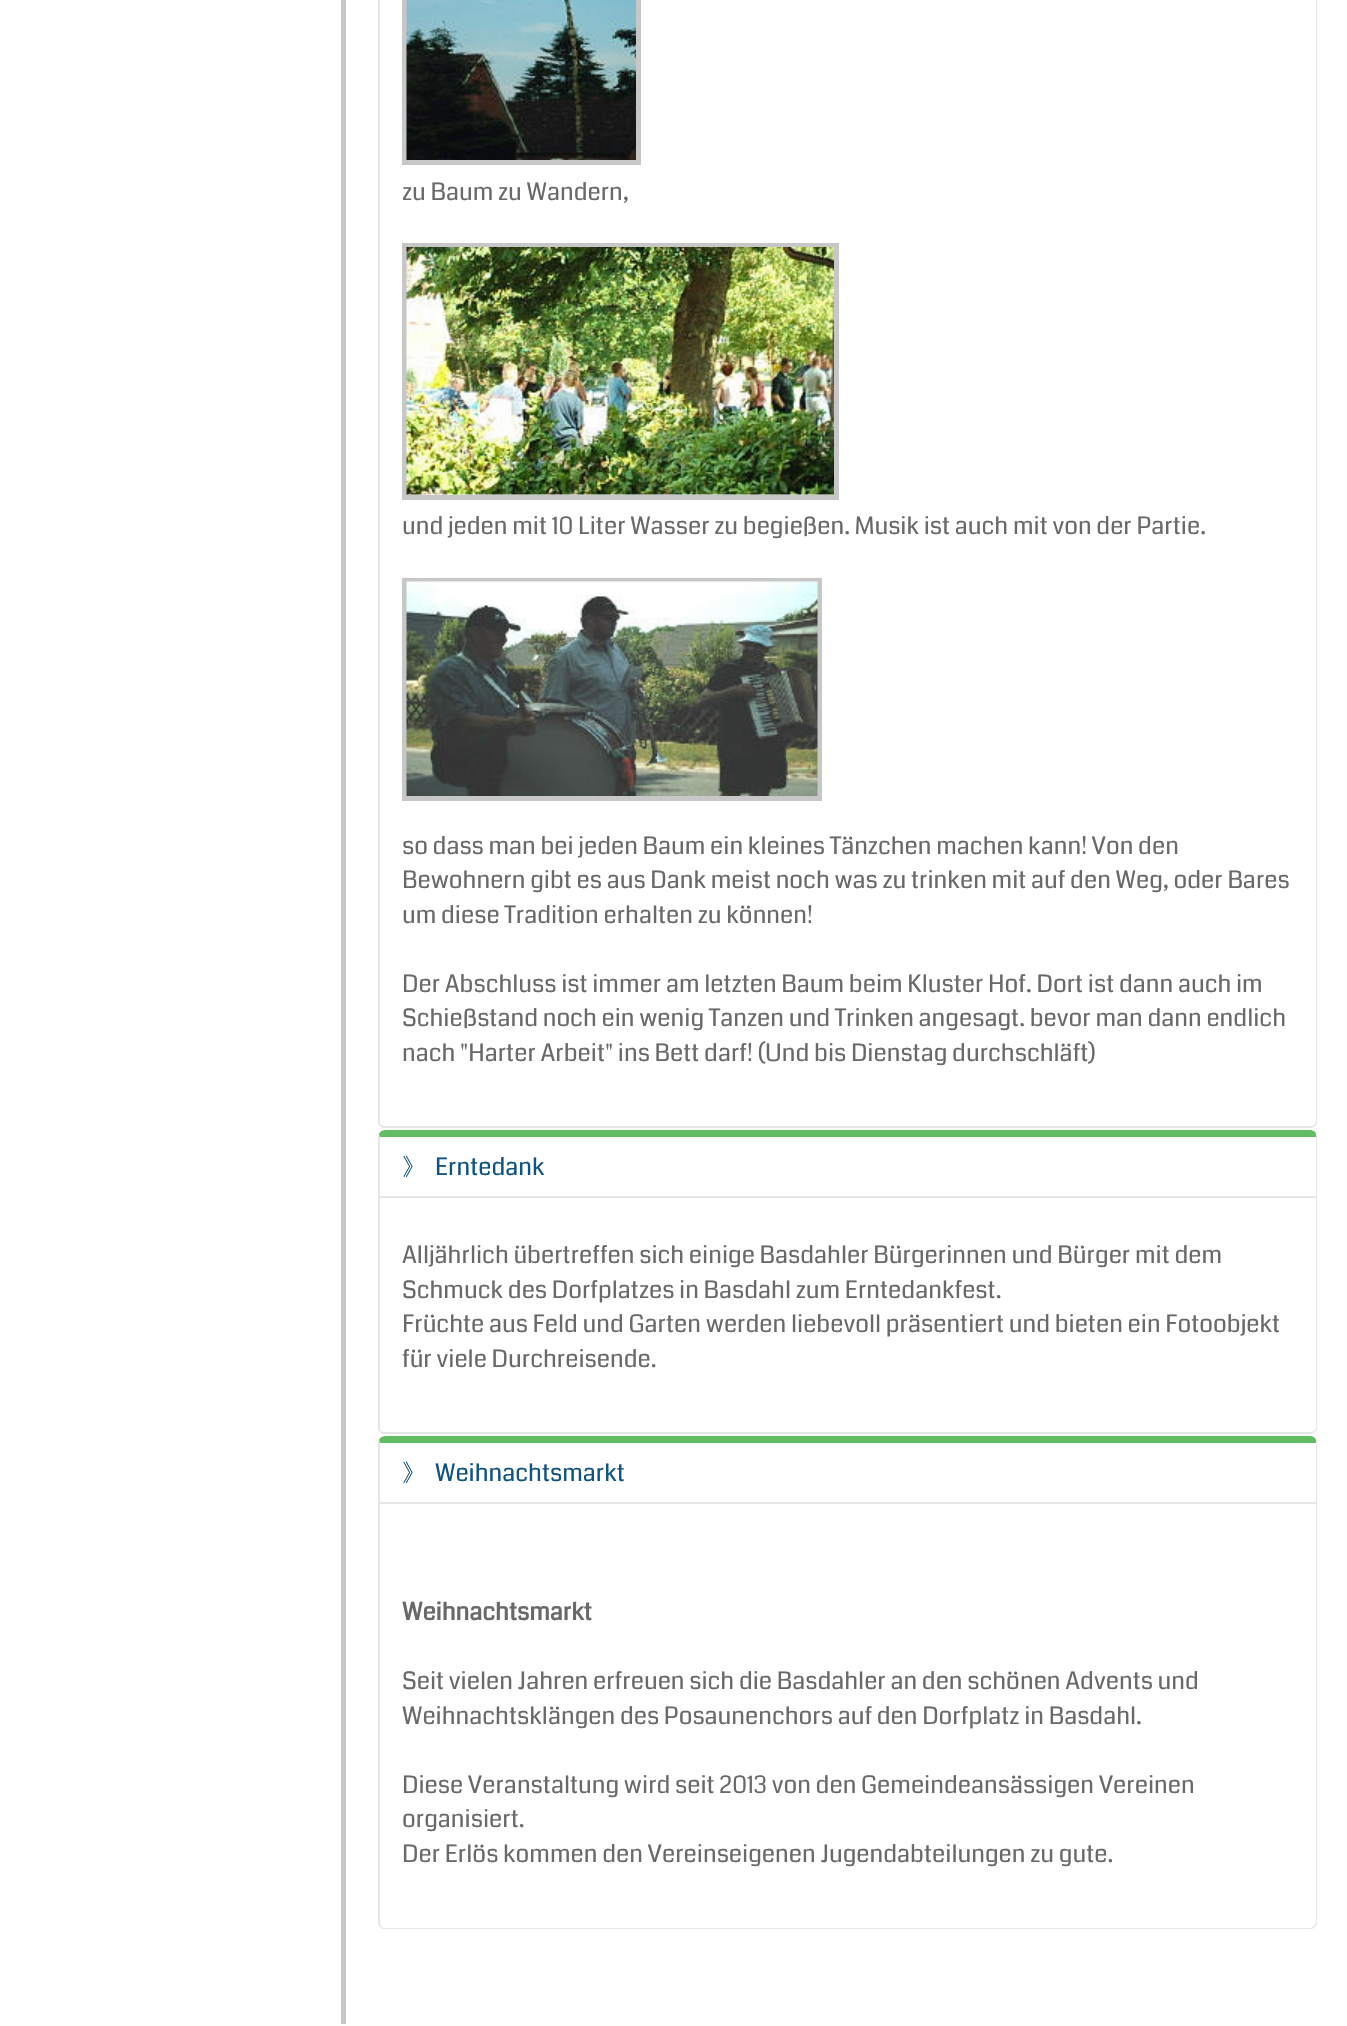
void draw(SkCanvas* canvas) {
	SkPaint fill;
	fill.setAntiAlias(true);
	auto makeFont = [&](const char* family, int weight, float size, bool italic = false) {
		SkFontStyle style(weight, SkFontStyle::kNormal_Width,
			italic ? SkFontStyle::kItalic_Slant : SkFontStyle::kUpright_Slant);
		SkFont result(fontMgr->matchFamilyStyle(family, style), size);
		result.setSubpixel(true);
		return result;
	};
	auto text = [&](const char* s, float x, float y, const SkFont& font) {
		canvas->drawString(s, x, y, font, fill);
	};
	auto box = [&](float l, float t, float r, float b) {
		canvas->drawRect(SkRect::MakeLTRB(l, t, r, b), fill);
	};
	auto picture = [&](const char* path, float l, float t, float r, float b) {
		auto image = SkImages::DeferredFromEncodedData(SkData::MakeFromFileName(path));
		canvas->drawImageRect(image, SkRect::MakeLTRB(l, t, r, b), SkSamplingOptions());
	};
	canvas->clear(0xFFFFFFFF);
	fill.setColor(0xFFC7C7C7);
	box(341, 0, 346, 2024);
	fill.setColor(0xFFE5E5E5);
	canvas->drawPath(SkPathBuilder().moveTo(1317, 1122).lineTo(1317, -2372).lineTo(1316, -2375).lineTo(1316, -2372).lineTo(1316, 1122).cubicTo(1316, 1123, 1315, 1124, 1314, 1125).lineTo(1315, 1126).cubicTo(1316, 1125, 1317, 1124, 1317, 1122).close().detach(), fill);
	canvas->drawPath(SkPathBuilder().moveTo(384, 1128).lineTo(1311, 1128).cubicTo(1312, 1128, 1314, 1127, 1315, 1126).lineTo(1314, 1125).lineTo(1311, 1126).lineTo(384, 1126).lineTo(381, 1125).lineTo(380, 1126).cubicTo(381, 1127, 382, 1128, 384, 1128).close().detach(), fill);
	canvas->drawPath(SkPathBuilder().moveTo(378, -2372).lineTo(378, 1122).cubicTo(378, 1124, 379, 1125, 380, 1126).lineTo(381, 1125).cubicTo(380, 1124, 380, 1123, 380, 1122).lineTo(380, -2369).lineTo(379, -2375).close().detach(), fill);
	fill.setStyle(SkPaint::kStroke_Style);
	fill.setStrokeWidth(5);
	fill.setColor(0xFFC7C7C7);
	canvas->drawRect(SkRect::MakeLTRB(404.5f, -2.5f, 638.5f, 162.5f), fill);
	picture("image0.png", 406, 0, 636, 160);
	canvas->drawRect(SkRect::MakeLTRB(404.5f, 245.5f, 836.5f, 497.5f), fill);
	picture("image1.png", 406, 247, 834, 495);
	canvas->drawRect(SkRect::MakeLTRB(404.5f, 580.5f, 819.5f, 798.5f), fill);
	picture("image2.png", 406, 581, 818, 796);
	fill.setStyle(SkPaint::kFill_Style);
	fill.setColor(0xFF62BC62);
	canvas->drawPath(SkPathBuilder().moveTo(386, 1130).cubicTo(383, 1130, 380, 1131, 379, 1134).lineTo(380, 1140).lineTo(380, 1137).lineTo(1316, 1137).lineTo(1316, 1134).cubicTo(1315, 1131, 1313, 1130, 1310, 1130).close().detach(), fill);
	fill.setColor(0xFFE5E5E5);
	canvas->drawPath(SkPathBuilder().moveTo(1317, 1428).lineTo(1317, 1137).lineTo(1316, 1134).lineTo(1316, 1137).lineTo(1316, 1428).cubicTo(1316, 1429, 1315, 1430, 1314, 1431).lineTo(1315, 1432).cubicTo(1316, 1431, 1317, 1430, 1317, 1428).close().detach(), fill);
	canvas->drawPath(SkPathBuilder().moveTo(384, 1434).lineTo(1311, 1434).cubicTo(1312, 1434, 1314, 1433, 1315, 1432).lineTo(1314, 1431).lineTo(1311, 1432).lineTo(384, 1432).lineTo(381, 1431).lineTo(380, 1432).cubicTo(381, 1433, 382, 1434, 384, 1434).close().detach(), fill);
	canvas->drawPath(SkPathBuilder().moveTo(378, 1137).lineTo(378, 1428).cubicTo(378, 1430, 379, 1431, 380, 1432).lineTo(381, 1431).cubicTo(380, 1430, 380, 1429, 380, 1428).lineTo(380, 1140).lineTo(379, 1134).close().detach(), fill);
	box(380, 1196, 1316, 1198);
	fill.setColor(0xFF62BC62);
	canvas->drawPath(SkPathBuilder().moveTo(386, 1436).cubicTo(383, 1436, 380, 1437, 379, 1440).lineTo(380, 1446).lineTo(380, 1443).lineTo(1316, 1443).lineTo(1316, 1440).cubicTo(1315, 1437, 1313, 1436, 1310, 1436).close().detach(), fill);
	fill.setColor(0xFFE5E5E5);
	canvas->drawPath(SkPathBuilder().moveTo(1317, 1923).lineTo(1317, 1443).lineTo(1316, 1440).lineTo(1316, 1443).lineTo(1316, 1923).lineTo(1314, 1926).lineTo(1315, 1927).cubicTo(1316, 1926, 1317, 1924, 1317, 1923).close().detach(), fill);
	canvas->drawPath(SkPathBuilder().moveTo(384, 1929).lineTo(1311, 1929).cubicTo(1312, 1929, 1314, 1928, 1315, 1927).lineTo(1314, 1926).lineTo(1311, 1928).lineTo(384, 1928).cubicTo(383, 1928, 382, 1927, 381, 1926).lineTo(380, 1927).cubicTo(381, 1928, 382, 1929, 384, 1929).close().detach(), fill);
	canvas->drawPath(SkPathBuilder().moveTo(378, 1443).lineTo(378, 1923).cubicTo(378, 1924, 379, 1926, 380, 1927).lineTo(381, 1926).lineTo(380, 1923).lineTo(380, 1446).lineTo(379, 1440).close().detach(), fill);
	box(380, 1502, 1316, 1504);
	auto font1 = makeFont("Coda", 400, 24);
	fill.setColor(0xFF696969);
	text("zu Baum zu Wandern,", 402, 200, font1);
	text("und jeden mit 10 Liter Wasser zu begießen. Musik ist auch mit von der Partie.", 402, 534, font1);
	text("so dass man bei jeden Baum ein kleines Tänzchen machen kann! Von den", 402, 854, font1);
	text("Bewohnern gibt es aus Dank meist noch was zu trinken mit auf den Weg, oder Bares", 402, 888, font1);
	text("um diese Tradition erhalten zu können!", 402, 923, font1);
	text("Der Abschluss ist immer am letzten Baum beim Kluster Hof. Dort ist dann auch im", 402, 992, font1);
	text("Schießstand noch ein wenig Tanzen und Trinken angesagt. bevor man dann endlich", 402, 1026, font1);
	text("nach \"Harter Arbeit\" ins Bett darf! (Und bis Dienstag durchschläft)", 402, 1061, font1);
	auto font2 = makeFont("WenQuanYi Zen Hei", 500, 24);
	fill.setColor(0xFF0F5380);
	text("》", 402, 1175, font2);
	text("Erntedank", 435, 1175, font1);
	fill.setColor(0xFF696969);
	text("Alljährlich übertreffen sich einige Basdahler Bürgerinnen und Bürger mit dem", 402, 1263, font1);
	text("Schmuck des Dorfplatzes in Basdahl zum Erntedankfest.", 402, 1298, font1);
	text("Früchte aus Feld und Garten werden liebevoll präsentiert und bieten ein Fotoobjekt", 402, 1332, font1);
	text("für viele Durchreisende.", 402, 1367, font1);
	fill.setColor(0xFF0F5380);
	text("》", 402, 1481, font2);
	text("Weihnachtsmarkt", 435, 1481, font1);
	auto font3 = makeFont("Coda", 700, 24);
	fill.setColor(0xFF696969);
	text("Weihnachtsmarkt", 402, 1620, font3);
	text("Seit vielen Jahren erfreuen sich die Basdahler an den schönen Advents und", 402, 1689, font1);
	text("Weihnachtsklängen des Posaunenchors auf den Dorfplatz in Basdahl.", 402, 1724, font1);
	text("Diese Veranstaltung wird seit 2013 von den Gemeindeansässigen Vereinen", 402, 1793, font1);
	text("organisiert.", 402, 1827, font1);
	text("Der Erlös kommen den Vereinseigenen Jugendabteilungen zu gute.", 402, 1862, font1);
}
